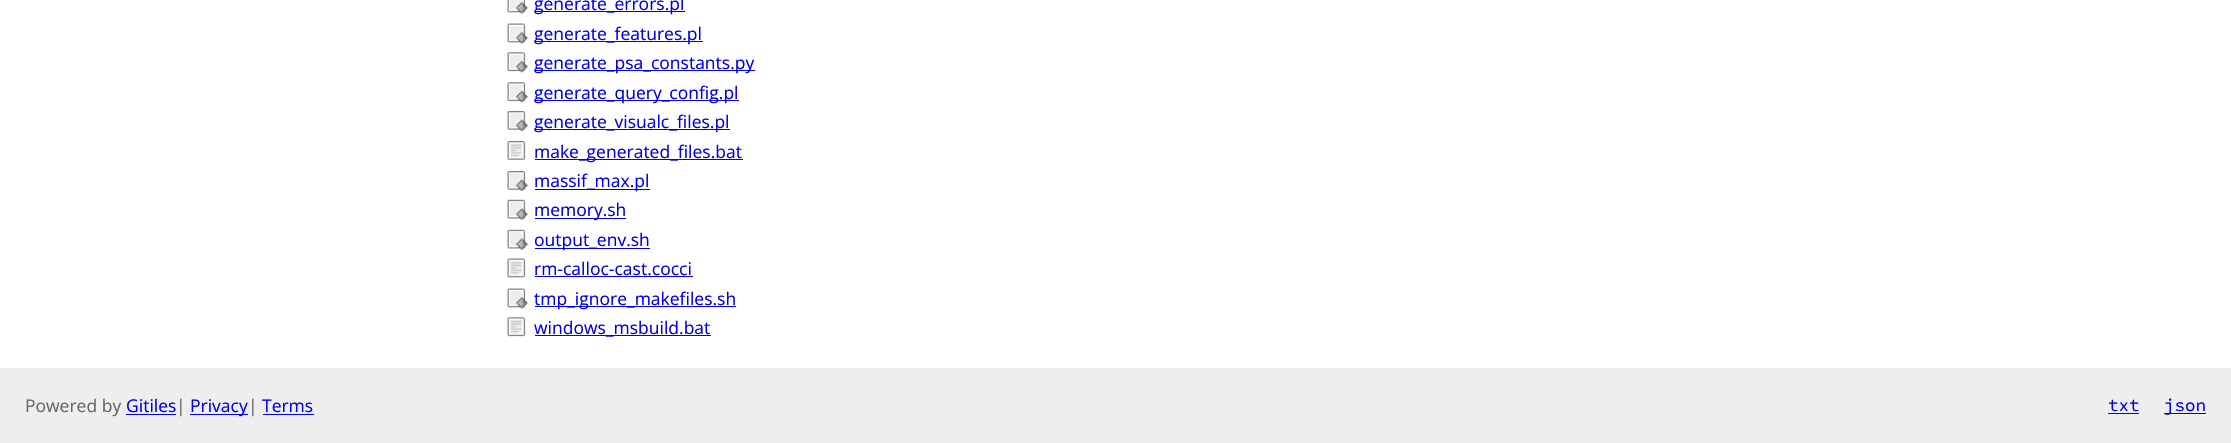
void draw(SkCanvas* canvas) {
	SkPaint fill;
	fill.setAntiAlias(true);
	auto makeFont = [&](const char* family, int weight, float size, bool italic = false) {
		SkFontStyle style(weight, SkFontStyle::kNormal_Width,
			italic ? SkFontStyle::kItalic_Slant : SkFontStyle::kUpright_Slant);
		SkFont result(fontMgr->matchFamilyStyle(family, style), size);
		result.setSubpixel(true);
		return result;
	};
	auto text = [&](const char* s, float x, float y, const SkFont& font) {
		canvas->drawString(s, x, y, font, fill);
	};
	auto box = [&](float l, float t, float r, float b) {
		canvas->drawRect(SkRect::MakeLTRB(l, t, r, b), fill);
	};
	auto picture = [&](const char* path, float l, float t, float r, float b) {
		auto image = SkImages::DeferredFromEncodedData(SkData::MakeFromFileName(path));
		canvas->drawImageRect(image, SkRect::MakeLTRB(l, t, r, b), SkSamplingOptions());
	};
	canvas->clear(0xFFFFFFFF);
	picture("image0.png", 507, 0, 528, 14);
	fill.setColor(0xFF0000EE);
	box(535, 11, 685, 12);
	picture("image1.png", 507, 23, 528, 44);
	box(535, 41, 703, 42);
	picture("image2.png", 507, 52, 528, 73);
	box(535, 70, 755, 71);
	picture("image2.png", 507, 82, 528, 103);
	box(535, 100, 739, 101);
	picture("image3.png", 507, 111, 528, 131);
	box(535, 129, 730, 130);
	picture("image4.png", 507, 141, 526, 160);
	box(535, 159, 743, 160);
	picture("image3.png", 507, 171, 528, 191);
	box(535, 189, 650, 190);
	picture("image5.png", 507, 199, 528, 220);
	box(535, 218, 626, 219);
	picture("image6.png", 507, 229, 528, 250);
	box(535, 248, 650, 249);
	picture("image7.png", 507, 258, 526, 278);
	box(535, 276, 693, 277);
	picture("image1.png", 507, 288, 528, 309);
	box(535, 306, 736, 307);
	picture("image8.png", 507, 317, 526, 337);
	box(535, 335, 711, 336);
	fill.setColor(0xFFEEEEEE);
	box(0, 368, 2231, 443);
	fill.setColor(0xFF0000EE);
	box(126, 414, 176, 415);
	box(190, 414, 248, 415);
	box(263, 414, 314, 415);
	box(2108, 413, 2139, 414);
	box(2164, 413, 2206, 414);
	auto font1 = makeFont("Open Sans", 400, 17.5f);
	text("generate_errors.pl", 534, 10, font1);
	text("generate_features.pl", 534, 40, font1);
	text("generate_psa_constants.py", 534, 69, font1);
	text("generate_query_config.pl", 534, 99, font1);
	text("generate_visualc_files.pl", 534, 128, font1);
	text("make_generated_files.bat", 534, 158, font1);
	text("massif_max.pl", 534, 187, font1);
	text("memory.sh", 534, 216, font1);
	text("output_env.sh", 534, 246, font1);
	text("rm-calloc-cast.cocci", 534, 275, font1);
	text("tmp_ignore_makefiles.sh", 534, 305, font1);
	text("windows_msbuild.bat", 534, 334, font1);
	fill.setColor(0xFF666666);
	text("Powered by", 25, 412, font1);
	fill.setColor(0xFF0000EE);
	text("Gitiles", 126, 412, font1);
	fill.setColor(0xFF666666);
	text("|", 176, 412, font1);
	fill.setColor(0xFF0000EE);
	text("Privacy", 190, 412, font1);
	fill.setColor(0xFF666666);
	text("|", 248, 412, font1);
	fill.setColor(0xFF0000EE);
	text("Terms", 262, 412, font1);
	auto font2 = makeFont("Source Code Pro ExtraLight", 200, 17.5f);
	text("txt", 2108, 411, font2);
	text("json", 2164, 411, font2);
}
